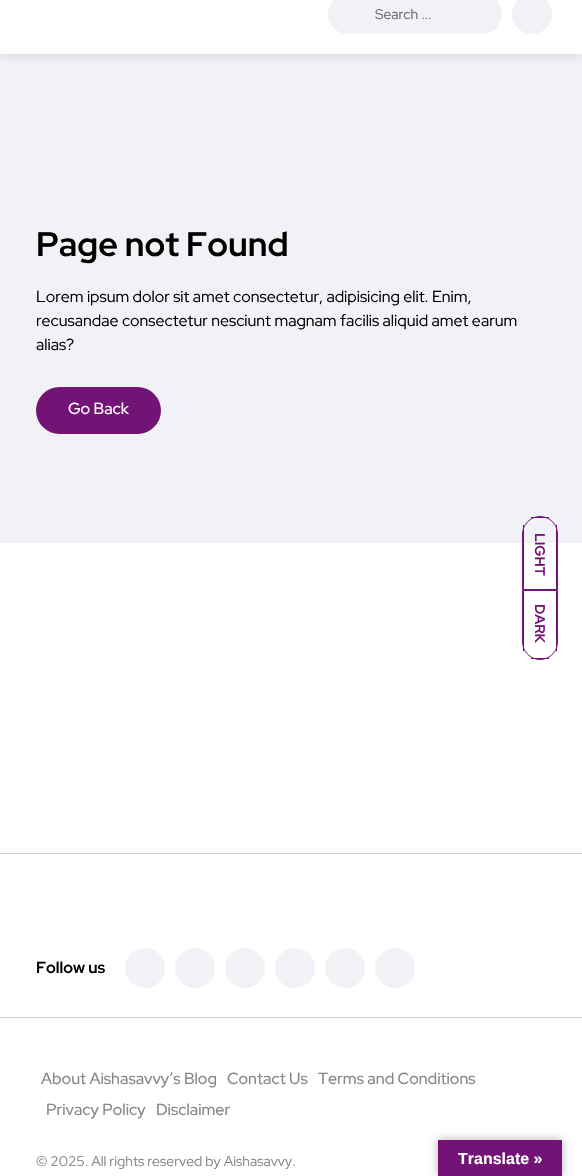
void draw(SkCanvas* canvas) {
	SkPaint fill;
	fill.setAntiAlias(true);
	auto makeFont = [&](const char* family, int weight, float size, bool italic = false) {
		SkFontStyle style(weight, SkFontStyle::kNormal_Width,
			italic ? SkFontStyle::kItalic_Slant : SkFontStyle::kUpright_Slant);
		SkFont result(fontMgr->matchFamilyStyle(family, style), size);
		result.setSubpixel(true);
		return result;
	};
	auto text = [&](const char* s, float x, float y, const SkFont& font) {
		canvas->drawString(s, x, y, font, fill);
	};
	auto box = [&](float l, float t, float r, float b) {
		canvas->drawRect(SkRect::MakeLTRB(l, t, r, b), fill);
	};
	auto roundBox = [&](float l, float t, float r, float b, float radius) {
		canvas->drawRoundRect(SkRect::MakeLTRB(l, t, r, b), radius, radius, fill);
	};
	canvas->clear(0xFFFFFFFF);
	fill.setColor(0xFFF0F2F5);
	box(0, 54, 582, 543);
	canvas->save();
	canvas->clipRect(SkRect::MakeLTRB(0, 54, 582, 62));
	fill.setColor(0x1A252F3F);
	fill.setMaskFilter(SkMaskFilter::MakeBlur(kNormal_SkBlurStyle, 5));
	canvas->drawRect(SkRect::MakeLTRB(0, -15, 582, 58), fill);
	fill.setMaskFilter(nullptr);
	canvas->restore();
	fill.setColor(0xFFF0F2F5);
	roundBox(328, -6, 502, 34, 20);
	canvas->drawCircle(532, 14, 20, fill);
	fill.setColor(0xFF731375);
	roundBox(36, 387, 161, 434, 23.5f);
	fill.setStyle(SkPaint::kStroke_Style);
	fill.setStrokeWidth(1);
	canvas->drawPath(SkPathBuilder().moveTo(557.5f, 534).lineTo(557.5f, 589.5f).lineTo(522.5f, 589.5f).lineTo(522.5f, 534).cubicTo(522.5f, 524.5f, 530.5f, 516.5f, 540, 516.5f).cubicTo(550, 516.5f, 557.5f, 524.5f, 557.5f, 534).close().detach(), fill);
	fill.setStyle(SkPaint::kFill_Style);
	box(556, 525, 557, 590);
	box(523, 525, 524, 590);
	box(531, 517, 549, 518);
	fill.setStyle(SkPaint::kStroke_Style);
	canvas->drawPath(SkPathBuilder().moveTo(557.5f, 590.5f).lineTo(557.5f, 642).cubicTo(557.5f, 651.5f, 550, 659.5f, 540, 659.5f).cubicTo(530.5f, 659.5f, 522.5f, 651.5f, 522.5f, 642).lineTo(522.5f, 590.5f).close().detach(), fill);
	fill.setStyle(SkPaint::kFill_Style);
	box(556, 590, 557, 651);
	box(531, 658, 549, 659);
	box(523, 590, 524, 651);
	fill.setColor(0xFFCED0D4);
	box(0, 853, 582, 854);
	fill.setColor(0xFFF0F2F5);
	canvas->drawCircle(145, 968, 20, fill);
	canvas->drawCircle(195, 968, 20, fill);
	canvas->drawCircle(245, 968, 20, fill);
	canvas->drawCircle(295, 968, 20, fill);
	canvas->drawCircle(345, 968, 20, fill);
	canvas->drawCircle(395, 968, 20, fill);
	fill.setColor(0xFFCED0D4);
	box(0, 1017, 582, 1018);
	fill.setColor(0x4D000000);
	fill.setMaskFilter(SkMaskFilter::MakeBlur(kNormal_SkBlurStyle, 4.5f));
	canvas->drawRect(SkRect::MakeLTRB(438, 1140, 562, 1176), fill);
	fill.setMaskFilter(nullptr);
	fill.setColor(0xFF731375);
	box(438, 1140, 562, 1176);
	auto font1 = makeFont("Red Hat Display", 400, 14);
	fill.setColor(0xFF65676B);
	text("Search ...", 375, 19, font1);
	auto font2 = makeFont("Red Hat Display", 700, 34);
	fill.setColor(0xFF000000);
	text("Page not Found", 36, 256, font2);
	auto font3 = makeFont("Red Hat Display", 400, 16);
	text("Lorem ipsum dolor sit amet consectetur, adipisicing elit. Enim,", 36, 302, font3);
	text("recusandae consectetur nesciunt magnam facilis aliquid amet earum", 36, 326, font3);
	text("alias?", 36, 350, font3);
	auto font4 = makeFont("Red Hat Display", 500, 16);
	fill.setColor(0xFFFFFFFF);
	text("Go Back", 68, 414, font4);
	auto font5 = makeFont("Red Hat Display", 700, 14);
	fill.setColor(0xFF731375);
	canvas->save();
	canvas->rotate(90, 535, 533);
	text("LIGHT", 535, 533, font5);
	canvas->restore();
	canvas->save();
	canvas->rotate(90, 535, 604);
	text("DARK", 535, 604, font5);
	canvas->restore();
	auto font6 = makeFont("Red Hat Display", 700, 16);
	fill.setColor(0xFF000000);
	text("Follow us", 36, 973, font6);
	fill.setColor(0xFF878787);
	text("About Aishasavvy’s Blog", 41, 1084, font4);
	text("Contact Us", 227, 1084, font4);
	text("Terms and Conditions", 318, 1084, font4);
	text("Privacy Policy", 46, 1115, font4);
	text("Disclaimer", 156, 1115, font4);
	text("© 2025. All rights reserved by Aishasavvy.", 36, 1166, font1);
	auto font7 = makeFont("Liberation Sans", 700, 16);
	fill.setColor(0xFFFFFFFF);
	text("Translate »", 458, 1164, font7);
}
